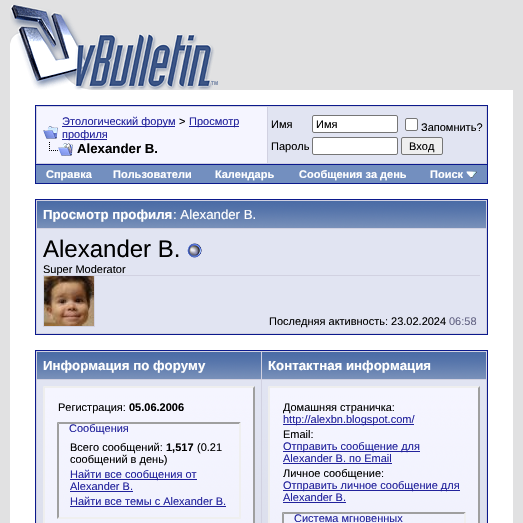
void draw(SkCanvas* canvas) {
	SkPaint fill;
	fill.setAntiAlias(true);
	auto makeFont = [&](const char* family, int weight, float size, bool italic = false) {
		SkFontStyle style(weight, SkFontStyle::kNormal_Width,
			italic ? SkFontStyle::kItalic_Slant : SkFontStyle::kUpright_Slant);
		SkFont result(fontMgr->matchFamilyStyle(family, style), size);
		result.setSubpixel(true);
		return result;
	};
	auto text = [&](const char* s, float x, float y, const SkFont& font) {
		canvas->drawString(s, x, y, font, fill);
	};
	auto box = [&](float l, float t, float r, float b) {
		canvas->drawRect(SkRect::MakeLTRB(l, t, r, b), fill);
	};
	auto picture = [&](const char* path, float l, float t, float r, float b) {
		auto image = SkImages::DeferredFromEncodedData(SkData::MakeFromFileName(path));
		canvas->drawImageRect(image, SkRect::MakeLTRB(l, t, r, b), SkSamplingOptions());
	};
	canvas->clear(0xFFE1E1E2);
	picture("image0.png", 10, 5, 218, 90);
	fill.setColor(0xFFFFFFFF);
	box(10, 90, 513, 523);
	fill.setColor(0xFFD1D1E1);
	canvas->drawRect(SkRect::MakeLTRB(35.5f, 105.5f, 487.5f, 164.5f), fill);
	fill.setStyle(SkPaint::kStroke_Style);
	fill.setStrokeWidth(1);
	fill.setColor(0xFF0B198C);
	canvas->drawRect(SkRect::MakeLTRB(35.5f, 105.5f, 487.5f, 164.5f), fill);
	fill.setStyle(SkPaint::kFill_Style);
	fill.setColor(0xFFF5F5FF);
	box(37, 107, 267, 163);
	picture("image1.png", 43, 126, 58, 139);
	fill.setColor(0xFF22229C);
	box(62, 126, 175, 127);
	box(189, 126, 239, 127);
	box(62, 139, 107, 140);
	picture("image2.png", 49, 142, 73, 156);
	fill.setColor(0xFFE1E4F2);
	box(268, 107, 486, 163);
	fill.setColor(0xFFFFFFFF);
	canvas->drawRoundRect(SkRect::MakeLTRB(312.5f, 115.5f, 397.5f, 132.5f), 1.5f, 1.5f, fill);
	fill.setStyle(SkPaint::kStroke_Style);
	fill.setColor(0xFF767676);
	canvas->drawRoundRect(SkRect::MakeLTRB(312.5f, 115.5f, 397.5f, 132.5f), 1.5f, 1.5f, fill);
	fill.setStyle(SkPaint::kFill_Style);
	fill.setColor(0xFFFFFFFF);
	canvas->drawRoundRect(SkRect::MakeLTRB(405.5f, 118.5f, 417.5f, 130.5f), 1.5f, 1.5f, fill);
	fill.setStyle(SkPaint::kStroke_Style);
	fill.setColor(0xFF767676);
	canvas->drawRoundRect(SkRect::MakeLTRB(405.5f, 118.5f, 417.5f, 130.5f), 1.5f, 1.5f, fill);
	fill.setStyle(SkPaint::kFill_Style);
	fill.setColor(0xFFFFFFFF);
	canvas->drawRoundRect(SkRect::MakeLTRB(312.5f, 137.5f, 397.5f, 154.5f), 1.5f, 1.5f, fill);
	fill.setStyle(SkPaint::kStroke_Style);
	fill.setColor(0xFF767676);
	canvas->drawRoundRect(SkRect::MakeLTRB(312.5f, 137.5f, 397.5f, 154.5f), 1.5f, 1.5f, fill);
	fill.setStyle(SkPaint::kFill_Style);
	fill.setColor(0xFFEFEFEF);
	canvas->drawRoundRect(SkRect::MakeLTRB(401.5f, 137.5f, 442.5f, 154.5f), 1.5f, 1.5f, fill);
	fill.setStyle(SkPaint::kStroke_Style);
	fill.setColor(0xFF767676);
	canvas->drawRoundRect(SkRect::MakeLTRB(401.5f, 137.5f, 442.5f, 154.5f), 1.5f, 1.5f, fill);
	fill.setStyle(SkPaint::kFill_Style);
	fill.setColor(0xFF0B198C);
	box(487, 165, 488, 184);
	box(35, 183, 488, 184);
	box(35, 165, 36, 184);
	fill.setColor(0xFF738FBF);
	box(36, 165, 487, 183);
	picture("image3.png", 466, 171, 477, 178);
	fill.setColor(0xFFD1D1E1);
	canvas->drawRect(SkRect::MakeLTRB(35.5f, 199.5f, 487.5f, 334.5f), fill);
	fill.setStyle(SkPaint::kStroke_Style);
	fill.setColor(0xFF0B198C);
	canvas->drawRect(SkRect::MakeLTRB(35.5f, 199.5f, 487.5f, 334.5f), fill);
	picture("image4.png", 37, 201, 486, 228);
	fill.setStyle(SkPaint::kFill_Style);
	fill.setColor(0xFFE1E4F2);
	box(37, 229, 486, 333);
	fill.setColor(0xFFD1D1E1);
	box(43, 275, 480, 276);
	picture("image5.png", 187, 243, 202, 258);
	box(94, 276, 95, 327);
	box(43, 326, 95, 327);
	box(43, 276, 44, 327);
	picture("image6.png", 44, 276, 94, 326);
	canvas->drawRect(SkRect::MakeLTRB(35.5f, 350.5f, 487.5f, 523.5f), fill);
	fill.setStyle(SkPaint::kStroke_Style);
	fill.setColor(0xFF0B198C);
	canvas->drawRect(SkRect::MakeLTRB(35.5f, 350.5f, 487.5f, 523.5f), fill);
	picture("image7.png", 37, 352, 261, 379);
	picture("image7.png", 262, 352, 486, 379);
	picture("image8.png", 37, 380, 261, 523);
	picture("image9.png", 45, 388, 253, 523);
	fill.setStyle(SkPaint::kFill_Style);
	fill.setColor(0xFFEEEEEE);
	canvas->drawPath(SkPathBuilder().moveTo(43, 386).lineTo(255, 386).lineTo(253, 388).lineTo(45, 388).close().detach(), fill);
	fill.setColor(0xFF9F9F9F);
	canvas->drawPath(SkPathBuilder().moveTo(255, 386).lineTo(255, 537).lineTo(253, 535).lineTo(253, 388).close().detach(), fill);
	fill.setColor(0xFFEEEEEE);
	canvas->drawPath(SkPathBuilder().moveTo(43, 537).lineTo(43, 386).lineTo(45, 388).lineTo(45, 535).close().detach(), fill);
	fill.setColor(0xFF9F9F9F);
	canvas->drawPath(SkPathBuilder().moveTo(57, 422).lineTo(241, 422).lineTo(239, 424).lineTo(59, 424).close().detach(), fill);
	fill.setColor(0xFFEFEFEF);
	canvas->drawPath(SkPathBuilder().moveTo(241, 422).lineTo(241, 519).lineTo(239, 517).lineTo(239, 424).close().detach(), fill);
	canvas->drawPath(SkPathBuilder().moveTo(241, 519).lineTo(57, 519).lineTo(59, 517).lineTo(239, 517).close().detach(), fill);
	fill.setColor(0xFF9F9F9F);
	canvas->drawPath(SkPathBuilder().moveTo(57, 519).lineTo(57, 422).lineTo(59, 424).lineTo(59, 517).close().detach(), fill);
	fill.setColor(0xFF22229C);
	box(70, 479, 197, 480);
	box(70, 491, 133, 492);
	box(70, 506, 226, 507);
	picture("image8.png", 262, 380, 486, 523);
	picture("image9.png", 270, 388, 478, 523);
	fill.setColor(0xFFEEEEEE);
	canvas->drawPath(SkPathBuilder().moveTo(268, 386).lineTo(480, 386).lineTo(478, 388).lineTo(270, 388).close().detach(), fill);
	fill.setColor(0xFF9F9F9F);
	canvas->drawPath(SkPathBuilder().moveTo(480, 386).lineTo(480, 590).lineTo(478, 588).lineTo(478, 388).close().detach(), fill);
	fill.setColor(0xFFEEEEEE);
	canvas->drawPath(SkPathBuilder().moveTo(268, 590).lineTo(268, 386).lineTo(270, 388).lineTo(270, 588).close().detach(), fill);
	fill.setColor(0xFF22229C);
	box(283, 424, 414, 425);
	box(283, 451, 420, 452);
	box(283, 463, 392, 464);
	box(283, 490, 460, 491);
	box(283, 502, 346, 503);
	fill.setColor(0xFF9F9F9F);
	canvas->drawPath(SkPathBuilder().moveTo(282, 512).lineTo(466, 512).lineTo(464, 514).lineTo(284, 514).close().detach(), fill);
	fill.setColor(0xFFEFEFEF);
	canvas->drawPath(SkPathBuilder().moveTo(466, 512).lineTo(466, 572).lineTo(464, 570).lineTo(464, 514).close().detach(), fill);
	fill.setColor(0xFF9F9F9F);
	canvas->drawPath(SkPathBuilder().moveTo(282, 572).lineTo(282, 512).lineTo(284, 514).lineTo(284, 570).close().detach(), fill);
	auto font1 = makeFont("Liberation Sans", 400, 11);
	fill.setColor(0xFF22229C);
	text("Этологический форум", 62, 125, font1);
	fill.setColor(0xFF000000);
	text(">", 179, 125, font1);
	fill.setColor(0xFF22229C);
	text("Просмотр", 189, 125, font1);
	text("профиля", 62, 138, font1);
	auto font2 = makeFont("Liberation Sans", 700, 13.25f);
	fill.setColor(0xFF000000);
	text("Alexander B.", 77, 153, font2);
	text("Имя", 271, 128, font1);
	text("Имя", 316, 128, font1);
	text("Запомнить?", 421, 131, font1);
	text("Пароль", 271, 150, font1);
	text("Вход", 409, 150, font1);
	auto font3 = makeFont("Liberation Sans", 700, 11);
	fill.setColor(0xFFFFFFFF);
	text("Справка", 46, 178, font3);
	text("Пользователи", 113, 178, font3);
	text("Календарь", 215, 178, font3);
	text("Сообщения за день", 299, 178, font3);
	text("Поиск", 430, 178, font3);
	text("Просмотр профиля", 43, 219, font2);
	auto font4 = makeFont("Liberation Sans", 400, 13.25f);
	text(": Alexander B.", 173, 219, font4);
	auto font5 = makeFont("Liberation Sans", 400, 24);
	fill.setColor(0xFF000000);
	text("Alexander B.", 43, 257, font5);
	text("Super Moderator", 43, 273, font1);
	text("Последняя активность: 23.02.2024", 269, 325, font1);
	fill.setColor(0xFF666686);
	text("06:58", 449, 325, font1);
	fill.setColor(0xFFFFFFFF);
	text("Информация по форуму", 43, 370, font2);
	text("Контактная информация", 268, 370, font2);
	fill.setColor(0xFF000000);
	text("Регистрация:", 58, 411, font1);
	text("05.06.2006", 129, 411, font3);
	fill.setColor(0xFF22229C);
	text("Сообщения", 69, 432, font1);
	fill.setColor(0xFF000000);
	text("Всего сообщений:", 70, 451, font1);
	text("1,517", 166, 451, font3);
	text("(0.21", 197, 451, font1);
	text("сообщений в день)", 70, 463, font1);
	fill.setColor(0xFF22229C);
	text("Найти все сообщения от", 70, 478, font1);
	text("Alexander B.", 70, 490, font1);
	text("Найти все темы с Alexander B.", 70, 505, font1);
	fill.setColor(0xFF000000);
	text("Домашняя страничка:", 283, 411, font1);
	fill.setColor(0xFF22229C);
	text("http://alexbn.blogspot.com/", 283, 423, font1);
	fill.setColor(0xFF000000);
	text("Email:", 283, 438, font1);
	fill.setColor(0xFF22229C);
	text("Отправить сообщение для", 283, 450, font1);
	text("Alexander B. по Email", 283, 462, font1);
	fill.setColor(0xFF000000);
	text("Личное сообщение:", 283, 477, font1);
	fill.setColor(0xFF22229C);
	text("Отправить личное сообщение для", 283, 489, font1);
	text("Alexander B.", 283, 501, font1);
	text("Система мгновенных", 294, 522, font1);
}
